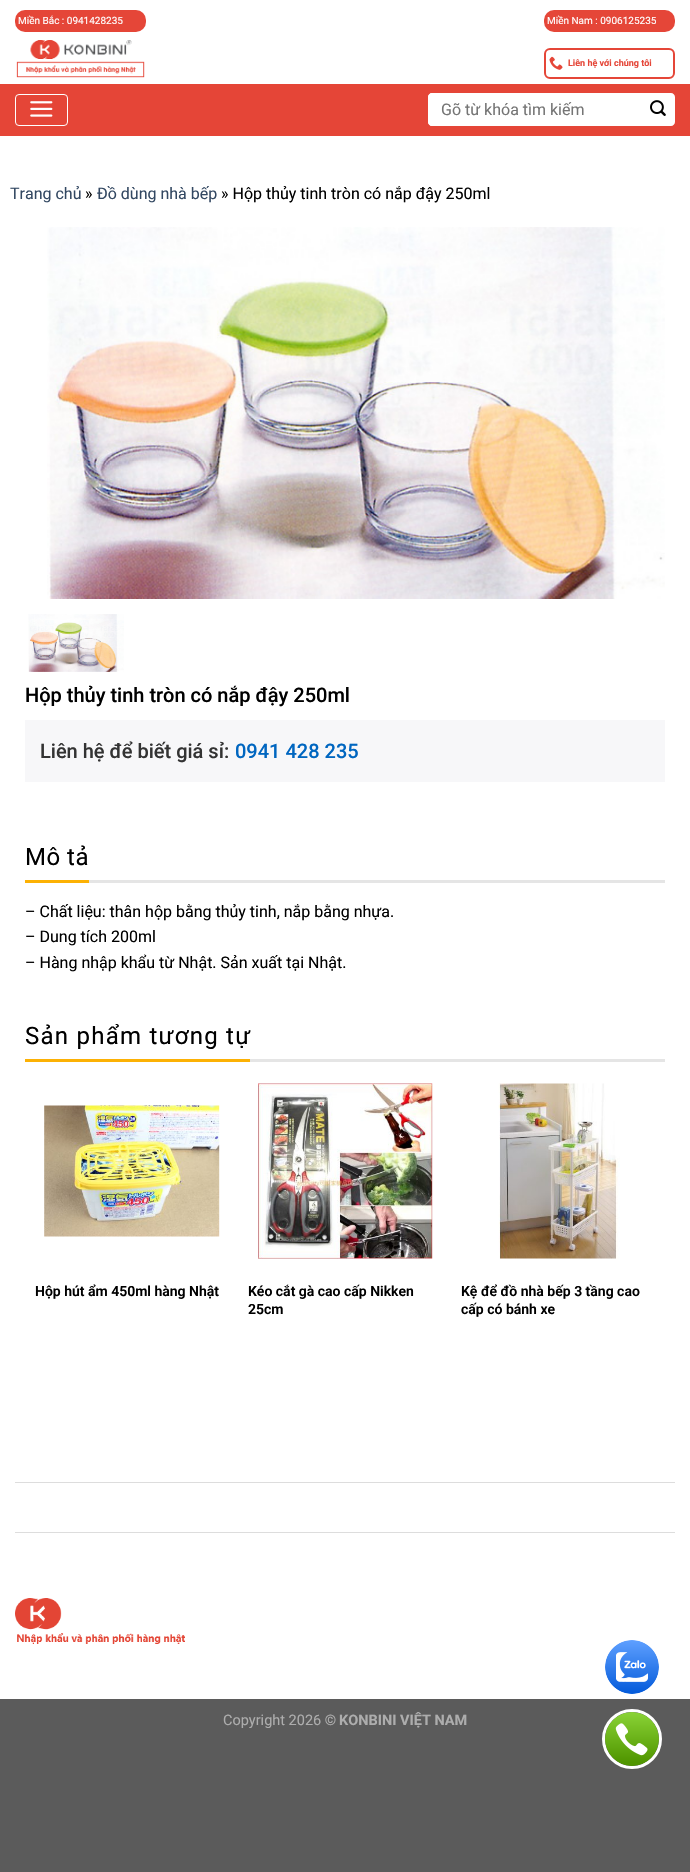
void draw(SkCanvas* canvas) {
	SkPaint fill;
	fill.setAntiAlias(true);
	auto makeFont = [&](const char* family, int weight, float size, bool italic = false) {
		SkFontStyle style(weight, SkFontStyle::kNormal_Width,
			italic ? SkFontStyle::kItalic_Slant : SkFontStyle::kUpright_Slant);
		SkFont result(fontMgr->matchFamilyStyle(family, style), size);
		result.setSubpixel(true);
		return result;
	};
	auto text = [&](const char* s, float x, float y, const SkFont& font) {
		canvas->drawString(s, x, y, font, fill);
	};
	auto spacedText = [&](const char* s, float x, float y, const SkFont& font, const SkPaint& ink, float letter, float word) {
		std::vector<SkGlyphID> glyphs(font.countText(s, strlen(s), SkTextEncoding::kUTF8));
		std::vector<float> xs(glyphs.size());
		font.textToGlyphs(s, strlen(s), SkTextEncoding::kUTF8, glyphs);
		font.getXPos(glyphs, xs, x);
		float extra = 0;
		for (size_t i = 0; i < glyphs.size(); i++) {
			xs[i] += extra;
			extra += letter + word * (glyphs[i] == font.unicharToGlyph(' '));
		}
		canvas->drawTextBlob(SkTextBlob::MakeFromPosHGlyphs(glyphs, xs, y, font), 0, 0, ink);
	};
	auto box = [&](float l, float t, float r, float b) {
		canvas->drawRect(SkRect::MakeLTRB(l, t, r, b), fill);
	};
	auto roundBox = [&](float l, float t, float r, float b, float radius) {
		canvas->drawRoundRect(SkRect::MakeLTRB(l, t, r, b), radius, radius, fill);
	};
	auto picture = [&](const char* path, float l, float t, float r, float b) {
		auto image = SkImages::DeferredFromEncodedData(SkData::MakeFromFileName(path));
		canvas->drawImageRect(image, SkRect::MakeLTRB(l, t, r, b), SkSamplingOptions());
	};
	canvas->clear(0xFF5B5B5B);
	fill.setColor(0xFFFFFFFF);
	box(0, 0, 690, 1699);
	fill.setColor(0xFFE54638);
	roundBox(15, 10, 146, 32, 10);
	roundBox(544, 10, 675, 32, 10);
	picture("image0.png", 16, 40, 145, 78);
	fill.setStyle(SkPaint::kStroke_Style);
	fill.setStrokeWidth(2);
	canvas->drawRoundRect(SkRect::MakeLTRB(545, 49, 674, 78), 5, 5, fill);
	picture("image1.png", 549, 56, 563, 70);
	fill.setStyle(SkPaint::kFill_Style);
	fill.setColor(0xFFE54537);
	box(0, 84, 690, 136);
	fill.setStyle(SkPaint::kStroke_Style);
	fill.setStrokeWidth(1);
	fill.setColor(0xFFFFFFFF);
	canvas->drawRoundRect(SkRect::MakeLTRB(15.5f, 94.5f, 67.5f, 125.5f), 3.5f, 3.5f, fill);
	picture("image2.png", 30, 101, 53, 117);
	fill.setStyle(SkPaint::kFill_Style);
	canvas->drawPath(SkPathBuilder().moveTo(432, 93).lineTo(642, 93).lineTo(642, 126).lineTo(432, 126).cubicTo(430, 126, 428, 124, 428, 122).lineTo(428, 97).cubicTo(428, 95, 430, 93, 432, 93).close().detach(), fill);
	canvas->drawPath(SkPathBuilder(SkPathFillType::kEvenOdd).moveTo(432, 93).lineTo(642, 93).lineTo(642, 126).lineTo(432, 126).cubicTo(430, 126, 428, 124, 428, 122).lineTo(428, 97).cubicTo(428, 95, 430, 93, 432, 93).close().moveTo(432, 94).lineTo(642, 94).lineTo(642, 125).lineTo(432, 125).cubicTo(430, 125, 429, 124, 429, 122).lineTo(429, 97).cubicTo(429, 95, 430, 94, 432, 94).close().detach(), fill);
	canvas->drawPath(SkPathBuilder().moveTo(642, 93).lineTo(671, 93).cubicTo(673, 93, 675, 95, 675, 97).lineTo(675, 122).cubicTo(675, 124, 673, 126, 671, 126).lineTo(642, 126).close().detach(), fill);
	picture("image3.png", 650, 100, 666, 116);
	picture("image4.png", 47, 227, 665, 599);
	picture("image5.png", 28, 614, 124, 672);
	fill.setColor(0xFFF7F7F9);
	box(25, 720, 665, 782);
	fill.setColor(0xFFE5E5E5);
	box(89, 880, 665, 883);
	fill.setColor(0xFFFCB104);
	box(25, 880, 89, 883);
	fill.setColor(0xFFE5E5E5);
	box(250, 1059, 665, 1062);
	fill.setColor(0xFFFCB104);
	box(25, 1059, 250, 1062);
	picture("image6.png", 44, 1105, 220, 1237);
	picture("image7.png", 258, 1083, 433, 1259);
	picture("image8.png", 498, 1083, 620, 1259);
	fill.setColor(0xFFDDDDDD);
	box(15, 1482, 675, 1483);
	box(15, 1532, 675, 1533);
	picture("image9.png", 15, 1598, 185, 1644);
	picture("image10.png", 605, 1640, 659, 1694);
	fill.setStyle(SkPaint::kStroke_Style);
	fill.setStrokeWidth(3);
	fill.setColor(0xFFFFFFFF);
	canvas->drawCircle(632, 1739, 28.5f, fill);
	picture("image11.png", 605, 1712, 659, 1766);
	auto font1 = makeFont("Roboto", 400, 10);
	fill.setStyle(SkPaint::kFill_Style);
	text("Miền Bắc : 0941428235", 18, 24, font1);
	text("Miền Nam : 0906125235", 547, 24, font1);
	auto font2 = makeFont("Roboto", 700, 9);
	fill.setColor(0xFFE54638);
	text("Liên hệ với chúng tôi", 568, 66, font2);
	auto font3 = makeFont("Roboto", 400, 16);
	fill.setColor(0xFF757575);
	text("Gõ từ khóa tìm kiếm", 441, 115, font3);
	fill.setColor(0xFF334862);
	text("Trang chủ", 10, 199, font3);
	fill.setColor(0xFF000000);
	text("»", 85, 199, font3);
	fill.setColor(0xFF334862);
	text("Đồ dùng nhà bếp", 97, 199, font3);
	fill.setColor(0xFF000000);
	text("» Hộp thủy tinh tròn có nắp đậy 250ml", 221, 199, font3);
	auto font4 = makeFont("Roboto", 500, 20);
	text("Hộp thủy tinh tròn có nắp đậy 250ml", 25, 702, font4);
	fill.setColor(0xFF333333);
	text("Liên hệ để biết giá sỉ:", 40, 758, font4);
	fill.setColor(0xFF0066C0);
	text("0941 428 235", 235, 758, font4);
	auto font5 = makeFont("Roboto", 400, 24);
	fill.setColor(0xFF000000);
	spacedText("Mô tả", 25, 865, font5, fill, 0.5f, 0);
	text("– Chất liệu: thân hộp bằng thủy tinh, nắp bằng nhựa.", 25, 917, font3);
	text("– Dung tích 200ml", 25, 942, font3);
	text("– Hàng nhập khẩu từ Nhật. Sản xuất tại Nhật.", 25, 968, font3);
	spacedText("Sản phẩm tương tự", 25, 1044, font5, fill, 1.25f, 0);
	auto font6 = makeFont("Roboto", 600, 14);
	text("Hộp hút ẩm 450ml hàng Nhật", 35, 1296, font6);
	text("Kéo cắt gà cao cấp Nikken", 248, 1296, font6);
	text("25cm", 248, 1314, font6);
	text("Kệ để đồ nhà bếp 3 tầng cao", 461, 1296, font6);
	text("cấp có bánh xe", 461, 1314, font6);
	auto font7 = makeFont("Roboto", 400, 14.5f);
	fill.setColor(0xFFADADAD);
	text("Copyright 2026 ©", 223, 1725, font7);
	auto font8 = makeFont("Roboto", 700, 14.5f);
	text("KONBINI VIỆT NAM", 339, 1725, font8);
}
